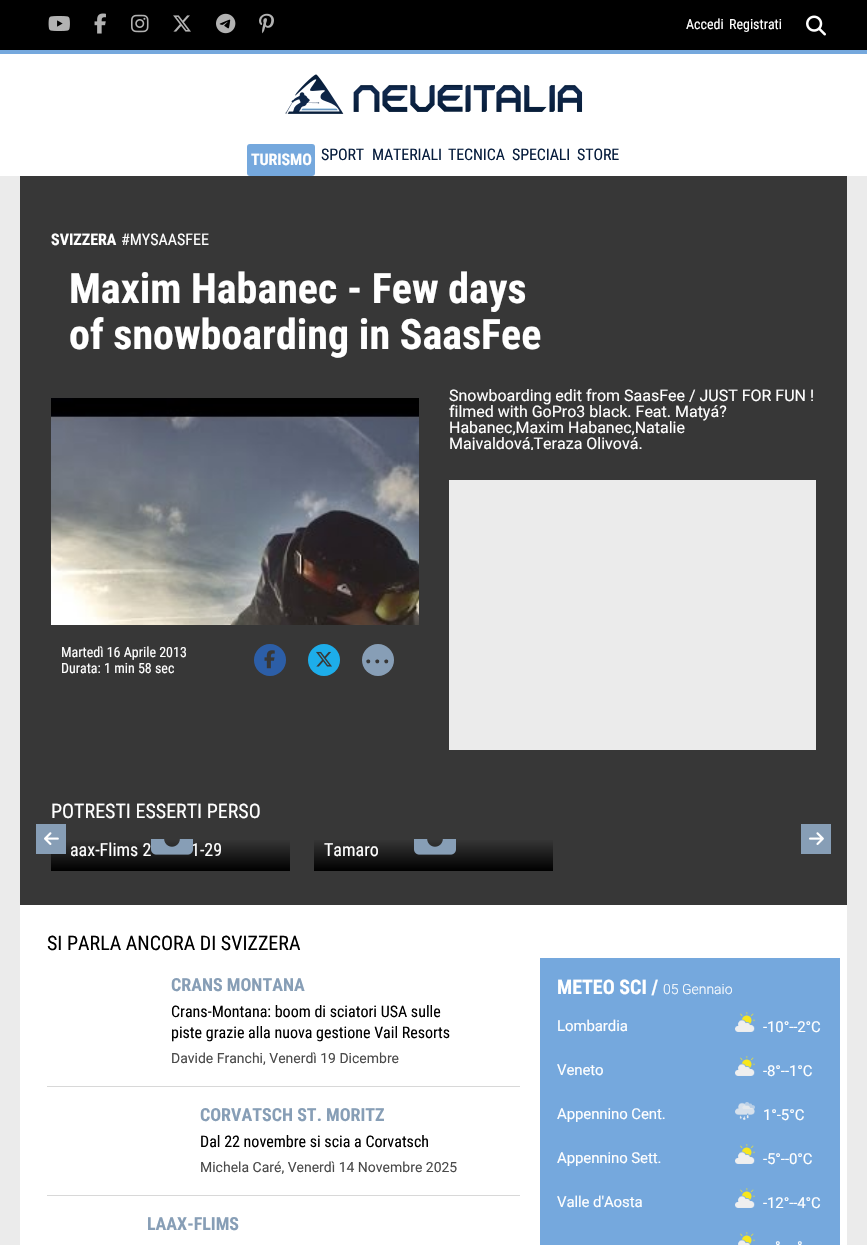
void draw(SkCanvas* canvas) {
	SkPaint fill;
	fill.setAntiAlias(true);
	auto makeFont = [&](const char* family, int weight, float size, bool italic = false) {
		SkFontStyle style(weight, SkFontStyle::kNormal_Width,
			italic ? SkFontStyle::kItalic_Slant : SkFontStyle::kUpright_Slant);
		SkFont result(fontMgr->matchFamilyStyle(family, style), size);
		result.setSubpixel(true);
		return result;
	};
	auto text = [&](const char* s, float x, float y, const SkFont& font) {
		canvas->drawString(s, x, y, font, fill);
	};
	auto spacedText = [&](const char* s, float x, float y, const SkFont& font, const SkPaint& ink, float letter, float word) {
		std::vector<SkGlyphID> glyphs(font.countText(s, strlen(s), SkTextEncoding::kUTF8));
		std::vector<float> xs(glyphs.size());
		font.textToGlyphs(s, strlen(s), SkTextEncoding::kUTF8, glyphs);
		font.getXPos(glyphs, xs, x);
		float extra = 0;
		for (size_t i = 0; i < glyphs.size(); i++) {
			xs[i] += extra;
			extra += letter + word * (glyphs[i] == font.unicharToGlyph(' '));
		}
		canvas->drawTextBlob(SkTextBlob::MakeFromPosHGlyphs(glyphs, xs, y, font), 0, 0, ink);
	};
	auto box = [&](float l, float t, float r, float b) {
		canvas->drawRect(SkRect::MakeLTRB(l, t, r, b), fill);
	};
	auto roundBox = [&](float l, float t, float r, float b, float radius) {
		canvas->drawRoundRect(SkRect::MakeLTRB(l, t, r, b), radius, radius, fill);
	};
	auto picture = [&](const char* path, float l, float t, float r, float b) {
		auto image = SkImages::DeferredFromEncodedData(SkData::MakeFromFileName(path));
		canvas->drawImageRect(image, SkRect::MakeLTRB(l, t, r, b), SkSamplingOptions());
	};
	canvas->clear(0xFFEBEBEB);
	fill.setColor(0xFF000000);
	box(0, 0, 867, 50);
	fill.setColor(0xFF75A8DD);
	box(0, 50, 867, 54);
	picture("image0.png", 48, 16, 70, 31);
	picture("image1.png", 94, 13, 106, 34);
	picture("image2.png", 131, 14, 149, 33);
	picture("image3.png", 173, 15, 191, 32);
	picture("image4.png", 216, 13, 236, 34);
	picture("image5.png", 259, 13, 274, 34);
	picture("image6.png", 806, 15, 826, 36);
	fill.setColor(0xFFFFFFFF);
	box(0, 54, 867, 176);
	picture("image7.png", 285, 74, 583, 114);
	fill.setColor(0xFF75A8DD);
	roundBox(247, 144, 315, 176, 3);
	fill.setColor(0xFF373737);
	box(20, 176, 847, 905);
	fill.setColor(0xFFEBEBEB);
	box(449, 480, 816, 750);
	picture("image8.png", 51, 398, 419, 625);
	fill.setColor(0xFF2C5EA7);
	canvas->drawCircle(270, 660, 16, fill);
	picture("image9.png", 264, 650, 275, 669);
	fill.setColor(0xFF1DADEA);
	canvas->drawCircle(324, 660, 16, fill);
	picture("image10.png", 316, 651, 332, 667);
	fill.setColor(0xFF879EB6);
	canvas->drawCircle(378, 660, 16, fill);
	{
		const SkColor colors[] = {0xFF373737, 0xFF000000};
		const float stops[] = {0, 1};
		const SkPoint ends[] = {{171, 839}, {171, 871}};
		fill.setShader(SkGradientShader::MakeLinear(ends, colors, stops, 2, SkTileMode::kClamp));
		fill.setAlpha(255);
	}
	box(51, 840, 290, 871);
	fill.setShader(nullptr);
	fill.setColor(0xFF879EB6);
	box(36, 824, 66, 854);
	picture("image11.png", 44, 832, 59, 845);
	box(801, 824, 831, 854);
	picture("image12.png", 809, 832, 824, 845);
	{
		const SkColor colors[] = {0xFF373737, 0xFF000000};
		const float stops[] = {0, 1};
		const SkPoint ends[] = {{434, 839}, {434, 871}};
		fill.setShader(SkGradientShader::MakeLinear(ends, colors, stops, 2, SkTileMode::kClamp));
		fill.setAlpha(255);
	}
	box(314, 840, 553, 871);
	picture("image14.png", 414, 839, 456, 855);
	fill.setShader(nullptr);
	fill.setColor(0xFFFFFFFF);
	box(20, 905, 847, 1245);
	fill.setColor(0xFFD8D8D8);
	box(47, 1086, 520, 1087);
	box(47, 1195, 520, 1196);
	fill.setColor(0xFF75A8DD);
	box(540, 958, 840, 1245);
	picture("image15.png", 735, 1012, 755, 1032);
	picture("image15.png", 735, 1056, 755, 1076);
	picture("image16.png", 735, 1102, 755, 1120);
	picture("image15.png", 735, 1144, 755, 1164);
	picture("image15.png", 735, 1188, 755, 1208);
	picture("image17.png", 738, 1232, 755, 1245);
	auto font1 = makeFont("Roboto Condensed", 400, 14);
	fill.setColor(0xFFFFFFFF);
	text("Accedi", 686, 29, font1);
	text("Registrati", 729, 29, font1);
	auto font2 = makeFont("Roboto Condensed", 700, 16);
	spacedText("TURISMO", 251, 165, font2, fill, -0.1f, 0);
	auto font3 = makeFont("Roboto Condensed", 400, 16);
	fill.setColor(0xFF071D3D);
	spacedText("SPORT", 321, 160, font3, fill, -0.1f, 0);
	spacedText("MATERIALI", 372, 160, font3, fill, -0.1f, 0);
	spacedText("TECNICA", 448, 160, font3, fill, -0.1f, 0);
	spacedText("SPECIALI", 512, 160, font3, fill, -0.1f, 0);
	spacedText("STORE", 577, 160, font3, fill, -0.1f, 0);
	fill.setColor(0xFFFFFFFF);
	text("SVIZZERA", 51, 245, font2);
	text("#MYSAASFEE", 121, 245, font3);
	auto font4 = makeFont("Roboto Condensed", 700, 42);
	text("Maxim Habanec - Few days", 69, 303, font4);
	text("of snowboarding in SaasFee", 69, 349, font4);
	auto font5 = makeFont("Roboto", 400, 16);
	text("Snowboarding edit from SaasFee / JUST FOR FUN !", 449, 401, font5);
	text("filmed with GoPro3 black. Feat. Matyá?", 449, 417, font5);
	text("Habanec,Maxim Habanec,Natalie", 449, 433, font5);
	canvas->save();
	canvas->clipRect(SkRect::MakeLTRB(449, 388, 816, 450));
	text("Majvaldová,Teraza Olivová.", 449, 449, font5);
	canvas->restore();
	text("Martedì 16 Aprile 2013", 61, 657, font1);
	text("Durata: 1 min 58 sec", 61, 673, font1);
	auto font6 = makeFont("Roboto Condensed", 400, 34);
	fill.setColor(0xFF373737);
	text("...", 364, 663, font6);
	auto font7 = makeFont("Roboto Condensed", 400, 20);
	fill.setColor(0xFFFFFFFF);
	text("POTRESTI ESSERTI PERSO", 51, 818, font7);
	auto font8 = makeFont("Roboto Condensed", 400, 18);
	text("aax-Flims 2", 70, 856, font8);
	text("1-29", 191, 856, font8);
	picture("image13.png", 151, 839, 193, 855);
	text("Tamaro", 324, 856, font8);
	fill.setColor(0xFF000000);
	text("SI PARLA ANCORA DI SVIZZERA", 47, 950, font7);
	auto font9 = makeFont("Roboto Condensed", 700, 18);
	fill.setColor(0xFF879EB6);
	text("CRANS MONTANA", 171, 991, font9);
	fill.setColor(0xFF000000);
	text("Crans-Montana: boom di sciatori USA sulle", 171, 1017, font3);
	text("piste grazie alla nuova gestione Vail Resorts", 171, 1038, font3);
	auto font10 = makeFont("Roboto", 400, 14);
	fill.setColor(0xFF4A4A4A);
	text("Davide Franchi, Venerdì 19 Dicembre", 171, 1063, font10);
	fill.setColor(0xFF879EB6);
	text("CORVATSCH ST. MORITZ", 200, 1121, font9);
	fill.setColor(0xFF000000);
	text("Dal 22 novembre si scia a Corvatsch", 200, 1147, font3);
	fill.setColor(0xFF4A4A4A);
	text("Michela Caré, Venerdì 14 Novembre 2025", 200, 1172, font10);
	fill.setColor(0xFF879EB6);
	text("LAAX-FLIMS", 147, 1230, font9);
	auto font11 = makeFont("Roboto Condensed", 700, 20);
	fill.setColor(0xFFFFFFFF);
	text("METEO SCI /", 557, 994, font11);
	auto font12 = makeFont("Roboto", 300, 14);
	text("05 Gennaio", 663, 994, font12);
	auto font13 = makeFont("Roboto", 400, 15);
	spacedText("Lombardia", 557, 1031, font13, fill, -0.1f, 0);
	spacedText("-10°--2°C", 763, 1032, font13, fill, -0.1f, 0);
	spacedText("Veneto", 557, 1075, font13, fill, -0.1f, 0);
	spacedText("-8°--1°C", 763, 1076, font13, fill, -0.1f, 0);
	spacedText("Appennino Cent.", 557, 1119, font13, fill, -0.1f, 0);
	spacedText("1°-5°C", 763, 1120, font13, fill, -0.1f, 0);
	spacedText("Appennino Sett.", 557, 1163, font13, fill, -0.1f, 0);
	spacedText("-5°--0°C", 763, 1164, font13, fill, -0.1f, 0);
	spacedText("Valle d'Aosta", 557, 1207, font13, fill, -0.1f, 0);
	spacedText("-12°--4°C", 763, 1208, font13, fill, -0.1f, 0);
	spacedText("°", 775, 1252, font13, fill, -0.1f, 0);
	spacedText("°", 797, 1252, font13, fill, -0.1f, 0);
}
